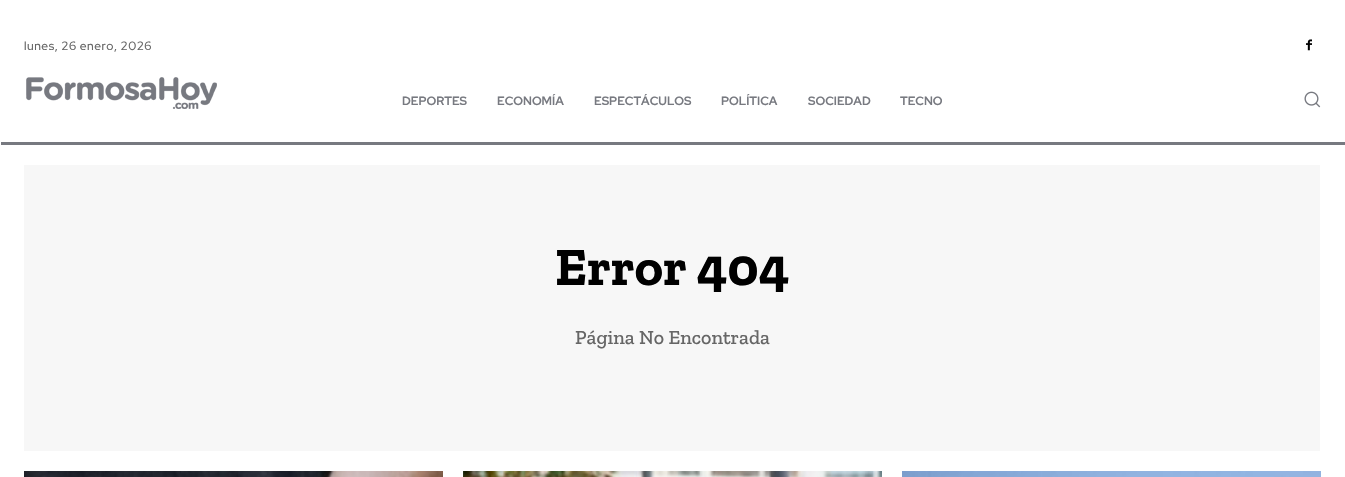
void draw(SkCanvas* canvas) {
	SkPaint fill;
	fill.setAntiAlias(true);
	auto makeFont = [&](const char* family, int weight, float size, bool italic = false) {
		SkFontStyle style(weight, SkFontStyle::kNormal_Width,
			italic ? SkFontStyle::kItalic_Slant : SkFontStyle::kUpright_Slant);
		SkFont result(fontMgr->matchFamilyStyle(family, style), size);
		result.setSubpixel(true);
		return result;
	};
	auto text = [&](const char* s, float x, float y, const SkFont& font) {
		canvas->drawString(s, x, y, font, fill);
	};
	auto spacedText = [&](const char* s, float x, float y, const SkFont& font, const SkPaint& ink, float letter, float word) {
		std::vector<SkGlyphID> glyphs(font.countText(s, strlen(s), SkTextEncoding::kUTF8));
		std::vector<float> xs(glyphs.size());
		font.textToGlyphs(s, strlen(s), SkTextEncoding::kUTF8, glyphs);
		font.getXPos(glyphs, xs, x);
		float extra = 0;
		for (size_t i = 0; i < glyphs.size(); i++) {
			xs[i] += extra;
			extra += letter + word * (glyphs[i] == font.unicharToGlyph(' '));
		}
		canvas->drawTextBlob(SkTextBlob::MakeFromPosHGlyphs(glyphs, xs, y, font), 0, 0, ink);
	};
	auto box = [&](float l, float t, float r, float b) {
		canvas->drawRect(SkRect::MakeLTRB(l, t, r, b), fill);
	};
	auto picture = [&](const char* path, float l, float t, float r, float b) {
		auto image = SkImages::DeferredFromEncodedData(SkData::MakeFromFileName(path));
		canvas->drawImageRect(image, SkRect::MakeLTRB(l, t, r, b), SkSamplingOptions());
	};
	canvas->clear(0xFFFFFFFF);
	picture("image0.png", 1306, 39, 1312, 51);
	picture("image1.png", 26, 77, 217, 109);
	picture("image2.png", 1304, 91, 1321, 108);
	fill.setColor(0xFF777980);
	box(1, 142, 1345, 145);
	fill.setColor(0xFFF7F7F7);
	box(24, 165, 1320, 451);
	picture("image3.png", 24, 471, 443, 477);
	picture("image4.png", 463, 471, 882, 477);
	picture("image5.png", 902, 471, 1321, 477);
	auto font1 = makeFont("Red Hat Display", 500, 12);
	fill.setColor(0xFF666666);
	spacedText("lunes, 26 enero, 2026", 24, 50, font1, fill, 0.5f, 0);
	auto font2 = makeFont("Red Hat Display", 700, 12);
	fill.setColor(0xFF777980);
	text("DEPORTES", 402, 105, font2);
	text("ECONOMÍA", 497, 105, font2);
	text("ESPECTÁCULOS", 594, 105, font2);
	text("POLÍTICA", 721, 105, font2);
	text("SOCIEDAD", 808, 105, font2);
	text("TECNO", 900, 105, font2);
	auto font3 = makeFont("Zilla Slab", 700, 54);
	fill.setColor(0xFF000000);
	text("Error 404", 555, 285, font3);
	auto font4 = makeFont("Zilla Slab", 500, 20);
	fill.setColor(0xFF666666);
	text("Página No Encontrada", 575, 344, font4);
}
